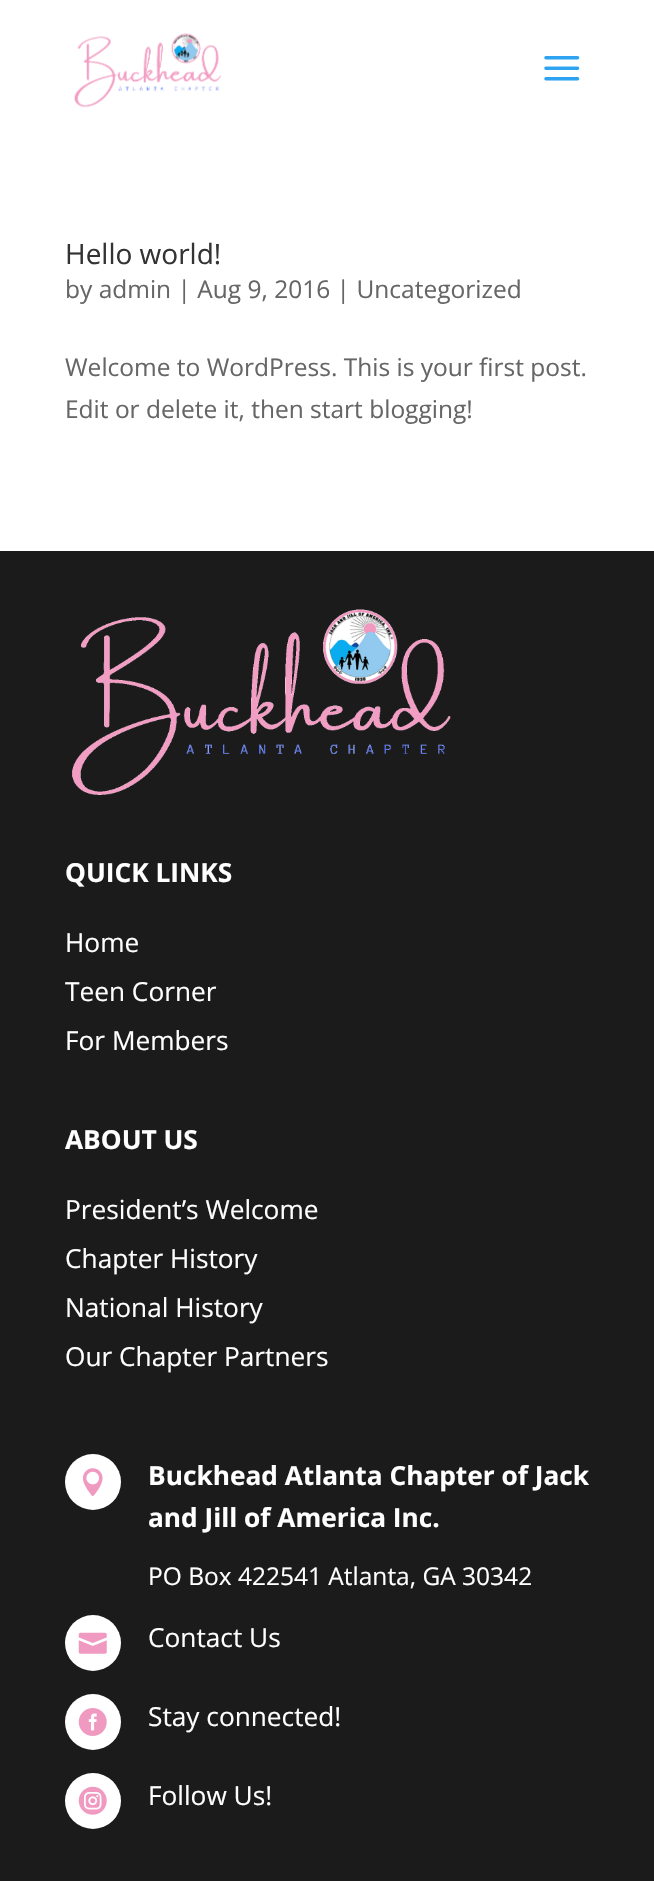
void draw(SkCanvas* canvas) {
	SkPaint fill;
	fill.setAntiAlias(true);
	auto makeFont = [&](const char* family, int weight, float size, bool italic = false) {
		SkFontStyle style(weight, SkFontStyle::kNormal_Width,
			italic ? SkFontStyle::kItalic_Slant : SkFontStyle::kUpright_Slant);
		SkFont result(fontMgr->matchFamilyStyle(family, style), size);
		result.setSubpixel(true);
		return result;
	};
	auto text = [&](const char* s, float x, float y, const SkFont& font) {
		canvas->drawString(s, x, y, font, fill);
	};
	auto box = [&](float l, float t, float r, float b) {
		canvas->drawRect(SkRect::MakeLTRB(l, t, r, b), fill);
	};
	auto picture = [&](const char* path, float l, float t, float r, float b) {
		auto image = SkImages::DeferredFromEncodedData(SkData::MakeFromFileName(path));
		canvas->drawImageRect(image, SkRect::MakeLTRB(l, t, r, b), SkSamplingOptions());
	};
	canvas->clear(0xFFFFFFFF);
	picture("image0.png", 74, 33, 221, 108);
	picture("image1.png", 544, 56, 580, 81);
	fill.setColor(0xFF1B1B1B);
	box(0, 551, 654, 1881);
	picture("image2.png", 72, 609, 451, 795);
	fill.setColor(0xFFFFFFFF);
	canvas->drawCircle(93, 1482, 28, fill);
	picture("image3.png", 82, 1468, 103, 1497);
	canvas->drawCircle(93, 1643, 28, fill);
	picture("image4.png", 78, 1632, 107, 1654);
	canvas->drawCircle(93, 1722, 28, fill);
	picture("image5.png", 78, 1708, 107, 1736);
	canvas->drawCircle(93, 1801, 28, fill);
	picture("image6.png", 78, 1786, 107, 1815);
	auto font1 = makeFont("Open Sans", 400, 28);
	fill.setColor(0xFF333333);
	text("Hello world!", 65, 264, font1);
	auto font2 = makeFont("Open Sans", 400, 24.5f);
	fill.setColor(0xFF666666);
	text("by admin | Aug 9, 2016 | Uncategorized", 65, 298, font2);
	text("Welcome to WordPress. This is your first post.", 65, 376, font2);
	text("Edit or delete it, then start blogging!", 65, 418, font2);
	auto font3 = makeFont("Open Sans", 700, 26.25f);
	fill.setColor(0xFFFFFFFF);
	text("QUICK LINKS", 65, 882, font3);
	auto font4 = makeFont("Open Sans", 400, 26.25f);
	text("Home", 65, 952, font4);
	text("Teen Corner", 65, 1001, font4);
	text("For Members", 65, 1050, font4);
	text("ABOUT US", 65, 1149, font3);
	text("President’s Welcome", 65, 1219, font4);
	text("Chapter History", 65, 1268, font4);
	text("National History", 65, 1317, font4);
	text("Our Chapter Partners", 65, 1366, font4);
	text("Buckhead Atlanta Chapter of Jack", 148, 1485, font3);
	text("and Jill of America Inc.", 148, 1527, font3);
	text("PO Box 422541 Atlanta, GA 30342", 148, 1585, font2);
	text("Contact Us", 148, 1647, font4);
	text("Stay connected!", 148, 1726, font4);
	text("Follow Us!", 148, 1805, font4);
}
